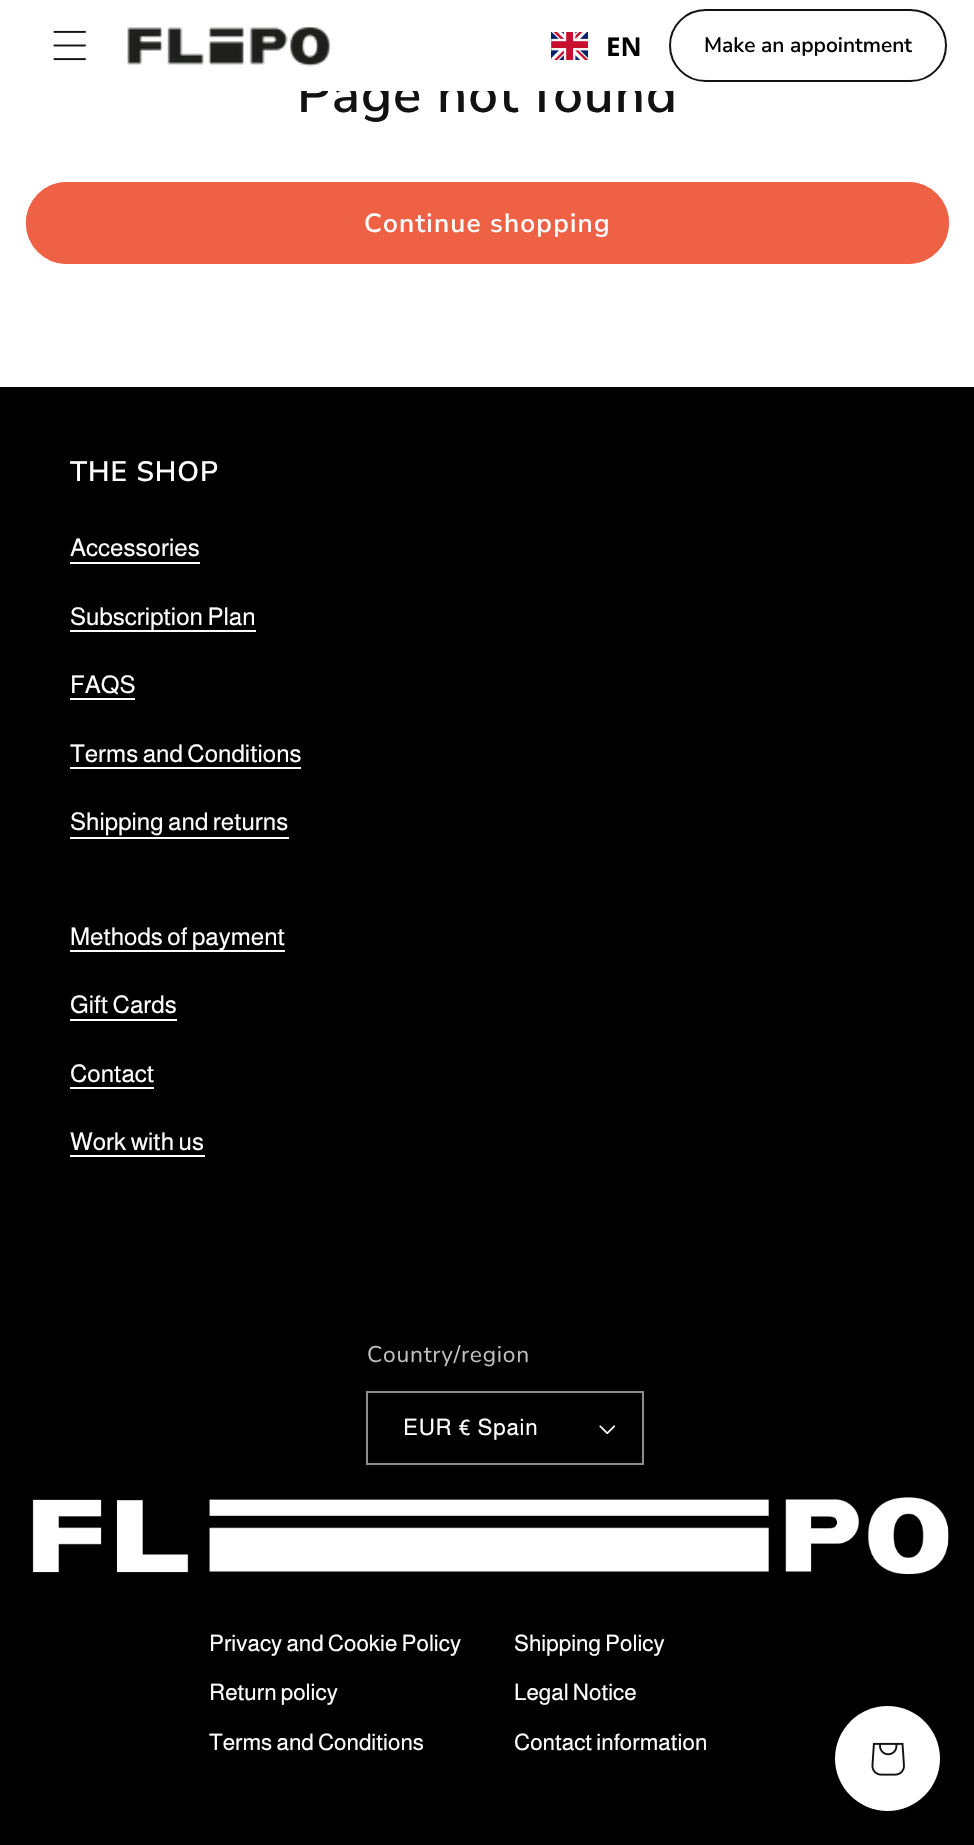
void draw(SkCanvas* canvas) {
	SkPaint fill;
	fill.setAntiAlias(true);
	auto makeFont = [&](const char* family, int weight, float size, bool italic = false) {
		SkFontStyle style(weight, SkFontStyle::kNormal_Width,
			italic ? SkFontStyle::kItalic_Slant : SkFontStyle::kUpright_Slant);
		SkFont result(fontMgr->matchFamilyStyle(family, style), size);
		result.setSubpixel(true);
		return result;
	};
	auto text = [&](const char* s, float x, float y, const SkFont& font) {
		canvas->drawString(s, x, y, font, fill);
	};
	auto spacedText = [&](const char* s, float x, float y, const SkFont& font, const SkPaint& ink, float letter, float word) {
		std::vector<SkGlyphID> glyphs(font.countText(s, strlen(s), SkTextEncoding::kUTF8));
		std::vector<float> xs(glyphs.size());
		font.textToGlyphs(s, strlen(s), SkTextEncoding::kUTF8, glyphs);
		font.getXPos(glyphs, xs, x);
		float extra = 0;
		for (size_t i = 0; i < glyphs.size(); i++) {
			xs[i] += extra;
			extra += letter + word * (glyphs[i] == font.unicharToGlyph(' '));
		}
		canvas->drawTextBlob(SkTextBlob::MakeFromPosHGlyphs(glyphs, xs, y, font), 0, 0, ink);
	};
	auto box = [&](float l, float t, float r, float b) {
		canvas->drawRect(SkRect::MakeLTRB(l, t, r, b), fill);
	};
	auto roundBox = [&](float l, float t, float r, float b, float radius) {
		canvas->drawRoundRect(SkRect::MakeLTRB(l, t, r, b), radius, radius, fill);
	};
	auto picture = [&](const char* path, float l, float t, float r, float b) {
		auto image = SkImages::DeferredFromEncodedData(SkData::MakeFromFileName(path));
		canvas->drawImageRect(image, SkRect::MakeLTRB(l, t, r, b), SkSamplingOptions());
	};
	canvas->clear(0xFFFFFFFF);
	picture("image0.png", 53, 30, 86, 61);
	picture("image1.png", 127, 26, 331, 67);
	picture("image2.png", 551, 32, 588, 60);
	fill.setColor(0xFF000000);
	box(0, 387, 974, 1845);
	fill.setColor(0xFFFFFFFF);
	canvas->drawCircle(887.5f, 1758.5f, 52.5f, fill);
	picture("image3.png", 871, 1742, 905, 1776);
	fill.setColor(0xFFEF6145);
	roundBox(26, 182, 949, 264, 41);
	fill.setStyle(SkPaint::kStroke_Style);
	fill.setStrokeWidth(2);
	canvas->drawRoundRect(SkRect::MakeLTRB(27, 183, 948, 263), 40, 40, fill);
	fill.setStyle(SkPaint::kFill_Style);
	fill.setColor(0xFFFFFFFF);
	box(70, 562, 200, 564);
	box(70, 630, 256, 632);
	box(70, 698, 135, 700);
	box(70, 767, 301, 769);
	box(70, 837, 289, 839);
	box(70, 950, 285, 952);
	box(70, 1019, 177, 1021);
	box(70, 1087, 154, 1089);
	box(70, 1155, 205, 1157);
	picture("image4.png", 599, 1425, 616, 1435);
	fill.setStyle(SkPaint::kStroke_Style);
	fill.setColor(0xFF8C8C8C);
	canvas->drawRect(SkRect::MakeLTRB(367, 1392, 643, 1464), fill);
	picture("image5.png", 32, 1497, 949, 1575);
	auto font1 = makeFont("Noto Sans", 700, 26);
	fill.setStyle(SkPaint::kFill_Style);
	fill.setColor(0xFF000000);
	text("EN", 606, 56, font1);
	auto font2 = makeFont("Nunito Sans", 600, 21);
	text("Make an appointment", 704, 52, font2);
	auto font3 = makeFont("Nunito Sans", 600, 52.5f);
	fill.setColor(0xFF121212);
	spacedText("Page not found", 297, 112, font3, fill, 1, 0);
	fill.setColor(0xFFFFFFFF);
	box(300, 74, 674, 91);
	fill.setStyle(SkPaint::kStroke_Style);
	fill.setColor(0xFF121212);
	canvas->drawRoundRect(SkRect::MakeLTRB(670, 10, 946, 81), 35.5f, 35.5f, fill);
	auto font4 = makeFont("Nunito Sans", 600, 26.25f);
	fill.setStyle(SkPaint::kFill_Style);
	fill.setColor(0xFFFFFFFF);
	spacedText("Continue shopping", 364, 232, font4, fill, 1.25f, 0);
	auto font5 = makeFont("Nunito Sans", 600, 28);
	spacedText("THE SHOP", 70, 481, font5, fill, 1, 0);
	auto font6 = makeFont("Almarai", 400, 24.5f);
	text("Accessories", 70, 556, font6);
	text("Subscription Plan", 70, 625, font6);
	text("FAQS", 70, 693, font6);
	text("Terms and Conditions", 70, 762, font6);
	text("Shipping and returns", 70, 830, font6);
	text("Methods of payment", 70, 945, font6);
	text("Gift Cards", 70, 1013, font6);
	text("Contact", 70, 1082, font6);
	text("Work with us", 70, 1150, font6);
	auto font7 = makeFont("Nunito", 400, 22.75f);
	fill.setColor(0xFFBFBFBF);
	spacedText("Country/region", 367, 1362, font7, fill, 0.75f, 0);
	auto font8 = makeFont("Almarai", 400, 22.75f);
	fill.setColor(0xFFFFFFFF);
	spacedText("EUR € Spain", 403, 1435, font8, fill, 0.75f, 0);
	text("Privacy and Cookie Policy", 209, 1651, font8);
	text("Shipping Policy", 514, 1651, font8);
	text("Return policy", 209, 1700, font8);
	text("Legal Notice", 514, 1700, font8);
	text("Terms and Conditions", 209, 1750, font8);
	text("Contact information", 514, 1750, font8);
}
